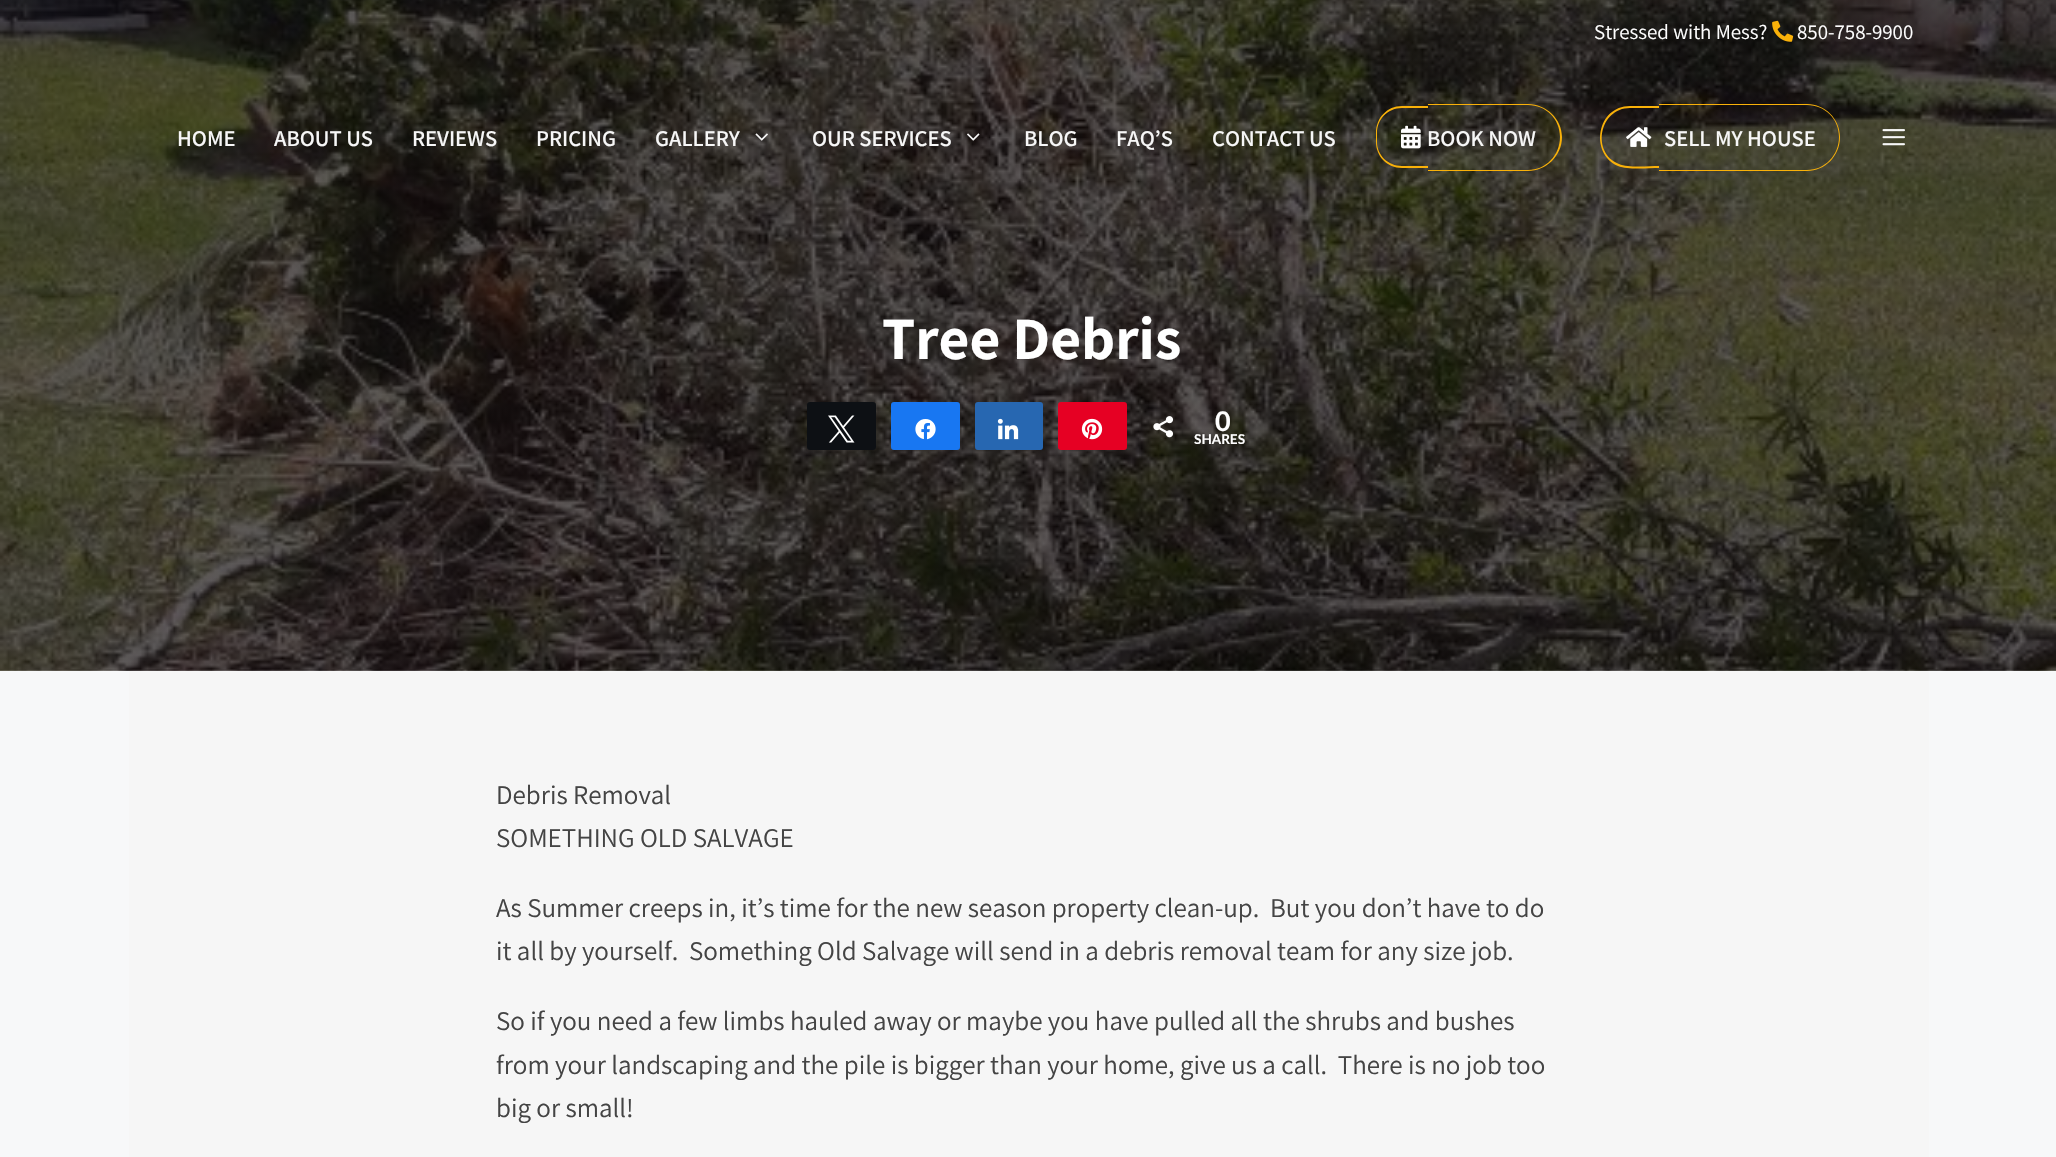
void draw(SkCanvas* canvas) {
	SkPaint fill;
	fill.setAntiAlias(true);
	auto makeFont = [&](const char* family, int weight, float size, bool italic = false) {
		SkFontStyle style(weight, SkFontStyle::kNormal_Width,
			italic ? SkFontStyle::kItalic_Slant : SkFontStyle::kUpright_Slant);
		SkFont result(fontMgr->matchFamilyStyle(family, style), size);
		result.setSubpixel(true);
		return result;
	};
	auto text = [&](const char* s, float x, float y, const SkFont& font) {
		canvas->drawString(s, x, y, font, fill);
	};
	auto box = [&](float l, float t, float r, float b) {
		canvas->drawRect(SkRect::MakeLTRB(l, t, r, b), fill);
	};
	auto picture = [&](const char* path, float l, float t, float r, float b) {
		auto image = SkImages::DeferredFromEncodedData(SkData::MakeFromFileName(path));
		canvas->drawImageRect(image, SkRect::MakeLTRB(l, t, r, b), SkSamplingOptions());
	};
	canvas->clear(0xFFF7F8F9);
	fill.setColor(0xFF595858);
	box(0, 670, 2056, 671);
	picture("image6.png", 0, 0, 2056, 671);
	picture("image0.png", 1772, 20, 1794, 42);
	picture("image1.png", 755, 133, 768, 141);
	picture("image2.png", 967, 133, 980, 141);
	fill.setColor(0xFFF9B109);
	canvas->drawPath(SkPathBuilder(SkPathFillType::kEvenOdd).moveTo(1402, 106).lineTo(1428, 106).lineTo(1428, 168).lineTo(1402, 168).cubicTo(1387, 168, 1376, 156, 1376, 142).lineTo(1376, 133).cubicTo(1376, 118, 1387, 106, 1402, 106).close().moveTo(1402, 108).lineTo(1428, 108).lineTo(1428, 166).lineTo(1402, 166).cubicTo(1388, 166, 1377, 155, 1377, 142).lineTo(1377, 133).cubicTo(1377, 119, 1388, 108, 1402, 108).close().detach(), fill);
	canvas->drawPath(SkPathBuilder(SkPathFillType::kEvenOdd).moveTo(1428, 104).lineTo(1528, 104).cubicTo(1546, 104, 1562, 119, 1562, 137).cubicTo(1562, 156, 1546, 171, 1528, 171).lineTo(1428, 171).close().moveTo(1428, 105).lineTo(1528, 105).cubicTo(1546, 105, 1560, 119, 1560, 137).cubicTo(1560, 155, 1546, 170, 1528, 170).lineTo(1428, 170).close().detach(), fill);
	picture("image3.png", 1401, 125, 1421, 149);
	canvas->drawPath(SkPathBuilder(SkPathFillType::kEvenOdd).moveTo(1630, 106).lineTo(1659, 106).lineTo(1659, 168).cubicTo(1648, 168, 1628, 170, 1618, 166).cubicTo(1589, 153, 1597, 106, 1630, 106).close().moveTo(1630, 108).lineTo(1659, 108).lineTo(1659, 166).cubicTo(1649, 166, 1628, 168, 1619, 164).cubicTo(1591, 153, 1599, 108, 1630, 108).close().detach(), fill);
	canvas->drawPath(SkPathBuilder(SkPathFillType::kEvenOdd).moveTo(1659, 104).lineTo(1807, 104).cubicTo(1825, 104, 1840, 119, 1840, 137).cubicTo(1840, 156, 1825, 171, 1807, 171).lineTo(1659, 171).close().moveTo(1659, 105).lineTo(1807, 105).cubicTo(1825, 105, 1839, 119, 1839, 137).cubicTo(1839, 155, 1825, 170, 1807, 170).lineTo(1659, 170).close().detach(), fill);
	picture("image4.png", 1626, 127, 1652, 147);
	picture("image5.png", 1882, 129, 1905, 146);
	fill.setColor(0xFF0D1014);
	canvas->drawRoundRect(SkRect::MakeLTRB(808, 403, 875, 449), 2, 2, fill);
	fill.setStyle(SkPaint::kStroke_Style);
	fill.setStrokeWidth(2);
	canvas->drawRoundRect(SkRect::MakeLTRB(808, 403, 875, 449), 2, 2, fill);
	picture("image7.png", 828, 415, 855, 443);
	fill.setStyle(SkPaint::kFill_Style);
	fill.setColor(0xFF1877F2);
	canvas->drawRoundRect(SkRect::MakeLTRB(892, 403, 959, 449), 2, 2, fill);
	fill.setStyle(SkPaint::kStroke_Style);
	canvas->drawRoundRect(SkRect::MakeLTRB(892, 403, 959, 449), 2, 2, fill);
	picture("image8.png", 915, 419, 936, 440);
	fill.setStyle(SkPaint::kFill_Style);
	fill.setColor(0xFF2767B1);
	canvas->drawRoundRect(SkRect::MakeLTRB(976, 403, 1042, 449), 2, 2, fill);
	fill.setStyle(SkPaint::kStroke_Style);
	canvas->drawRoundRect(SkRect::MakeLTRB(976, 403, 1042, 449), 2, 2, fill);
	picture("image9.png", 997, 418, 1019, 440);
	fill.setStyle(SkPaint::kFill_Style);
	fill.setColor(0xFFE60023);
	canvas->drawRoundRect(SkRect::MakeLTRB(1059, 403, 1126, 449), 2, 2, fill);
	fill.setStyle(SkPaint::kStroke_Style);
	canvas->drawRoundRect(SkRect::MakeLTRB(1059, 403, 1126, 449), 2, 2, fill);
	picture("image10.png", 1081, 418, 1103, 440);
	picture("image11.png", 1153, 416, 1174, 438);
	fill.setStyle(SkPaint::kFill_Style);
	fill.setColor(0xFFF6F6F6);
	box(129, 671, 1929, 1157);
	auto font1 = makeFont("Assistant", 400, 21);
	fill.setColor(0xFFFFFFFF);
	text("Stressed with Mess?", 1594, 39, font1);
	text("850-758-9900", 1797, 39, font1);
	auto font2 = makeFont("Assistant", 600, 22.5f);
	fill.setColor(0xFFF7F7F7);
	text("HOME", 177, 146, font2);
	text("ABOUT US", 274, 146, font2);
	text("REVIEWS", 412, 146, font2);
	text("PRICING", 536, 146, font2);
	text("GALLERY", 655, 146, font2);
	text("OUR SERVICES", 812, 146, font2);
	text("BLOG", 1024, 146, font2);
	text("FAQ’S", 1116, 146, font2);
	text("CONTACT US", 1212, 146, font2);
	text("BOOK NOW", 1427, 146, font2);
	text("SELL MY HOUSE", 1664, 146, font2);
	auto font3 = makeFont("Assistant", 700, 60);
	fill.setColor(0xFFFFFFFF);
	text("Tree Debris", 882, 359, font3);
	auto font4 = makeFont("Lato", 700, 27);
	text("0", 1215, 431, font4);
	auto font5 = makeFont("Lato", 700, 13.5f);
	text("SHARES", 1194, 444, font5);
	auto font6 = makeFont("Assistant", 400, 27);
	fill.setColor(0xFF444444);
	text("Debris Removal", 496, 804, font6);
	text("SOMETHING OLD SALVAGE", 496, 847, font6);
	text("As Summer creeps in, it’s time for the new season property clean-up.  But you don’t have to do", 496, 917, font6);
	text("it all by yourself.  Something Old Salvage will send in a debris removal team for any size job.", 496, 960, font6);
	text("So if you need a few limbs hauled away or maybe you have pulled all the shrubs and bushes", 496, 1030, font6);
	text("from your landscaping and the pile is bigger than your home, give us a call.  There is no job too", 496, 1074, font6);
	text("big or small!", 496, 1117, font6);
}
